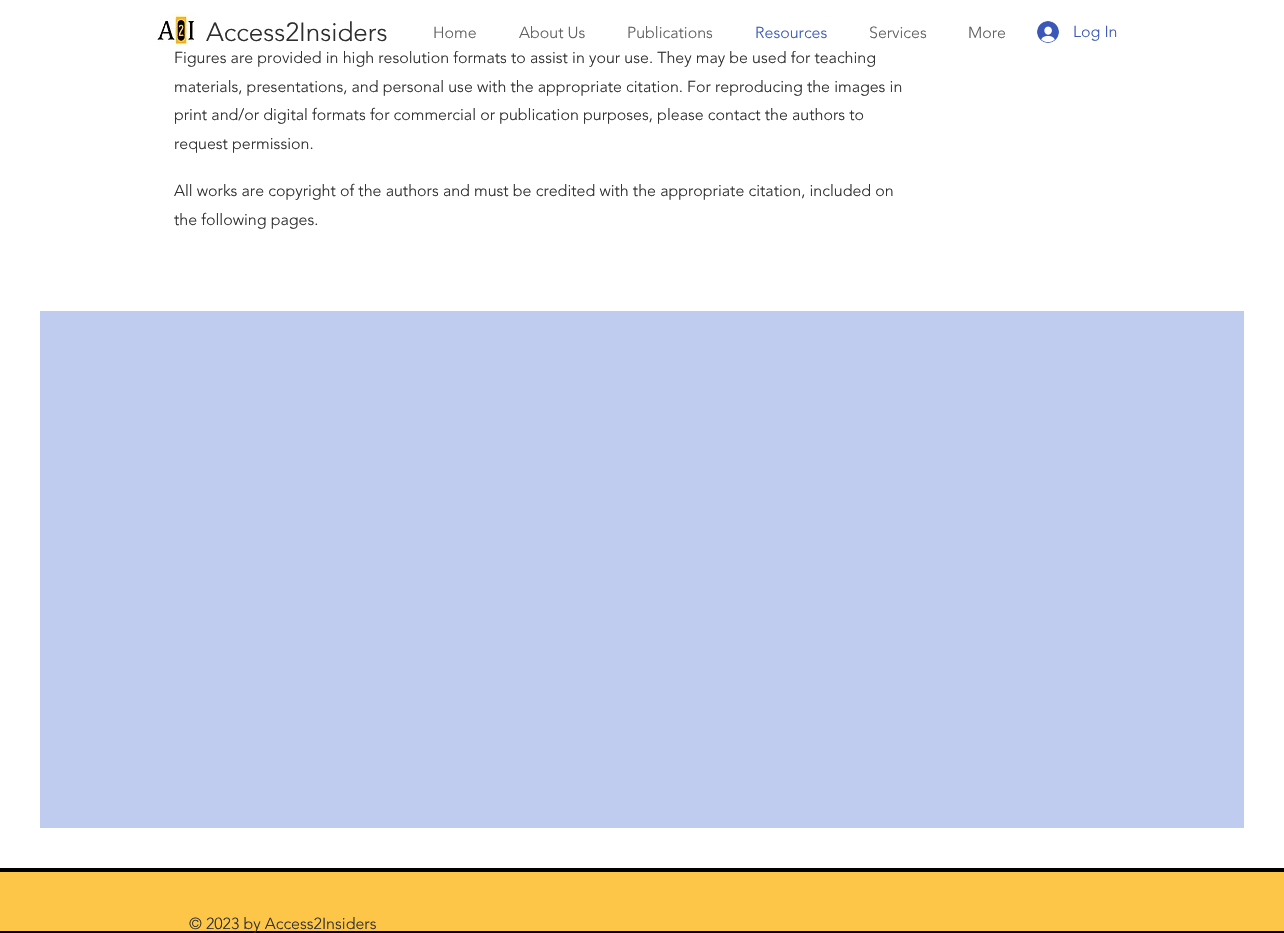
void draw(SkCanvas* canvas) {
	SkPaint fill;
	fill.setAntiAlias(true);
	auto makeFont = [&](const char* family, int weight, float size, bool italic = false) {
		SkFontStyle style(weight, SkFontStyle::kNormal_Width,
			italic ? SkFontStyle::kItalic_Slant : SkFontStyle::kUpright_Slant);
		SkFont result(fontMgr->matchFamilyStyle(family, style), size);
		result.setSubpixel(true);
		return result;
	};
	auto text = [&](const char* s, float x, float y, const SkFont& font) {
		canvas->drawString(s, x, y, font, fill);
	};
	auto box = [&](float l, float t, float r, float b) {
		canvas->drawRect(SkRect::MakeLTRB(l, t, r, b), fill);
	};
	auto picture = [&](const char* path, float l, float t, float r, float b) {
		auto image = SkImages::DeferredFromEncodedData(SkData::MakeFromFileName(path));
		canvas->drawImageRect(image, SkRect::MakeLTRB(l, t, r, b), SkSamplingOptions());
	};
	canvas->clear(0xFFFFFFFF);
	picture("image0.png", 157, 14, 196, 47);
	picture("image1.png", 1037, 21, 1059, 43);
	fill.setColor(0xFFC0CBF0);
	box(40, 311, 1244, 828);
	fill.setColor(0xFFFEC649);
	box(0, 872, 1284, 931);
	fill.setColor(0xFF000000);
	box(0, 868, 1284, 872);
	box(0, 931, 1284, 933);
	auto font1 = makeFont("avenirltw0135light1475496", 300, 26);
	fill.setColor(0xFF2F2E2E);
	text("Access2Insiders", 206, 41, font1);
	auto font2 = makeFont("avenirltw0135light1475496", 300, 16);
	fill.setColor(0xFF605E5E);
	text("Home", 433, 38, font2);
	text("About Us", 519, 38, font2);
	text("Publications", 627, 38, font2);
	fill.setColor(0xFF3B58B8);
	text("Resources", 755, 38, font2);
	fill.setColor(0xFF605E5E);
	text("Services", 869, 38, font2);
	text("More", 968, 38, font2);
	fill.setColor(0xFF3B58B8);
	text("Log In", 1073, 37, font2);
	fill.setColor(0xFF2F2E2E);
	text("Figures are provided in high resolution formats to assist in your use. They may be used for teaching", 174, 63, font2);
	fill.setColor(0xFFFFFFFF);
	box(301, 50, 847, 51);
	fill.setColor(0xFF2F2E2E);
	text("materials, presentations, and personal use with the appropriate citation. For reproducing the images in", 174, 92, font2);
	text("print and/or digital formats for commercial or publication purposes, please contact the authors to", 174, 120, font2);
	text("request permission.", 174, 149, font2);
	text("All works are copyright of the authors and must be credited with the appropriate citation, included on", 174, 196, font2);
	text("the following pages.", 174, 225, font2);
	text("© 2023 by Access2Insiders", 189, 929, font2);
}
